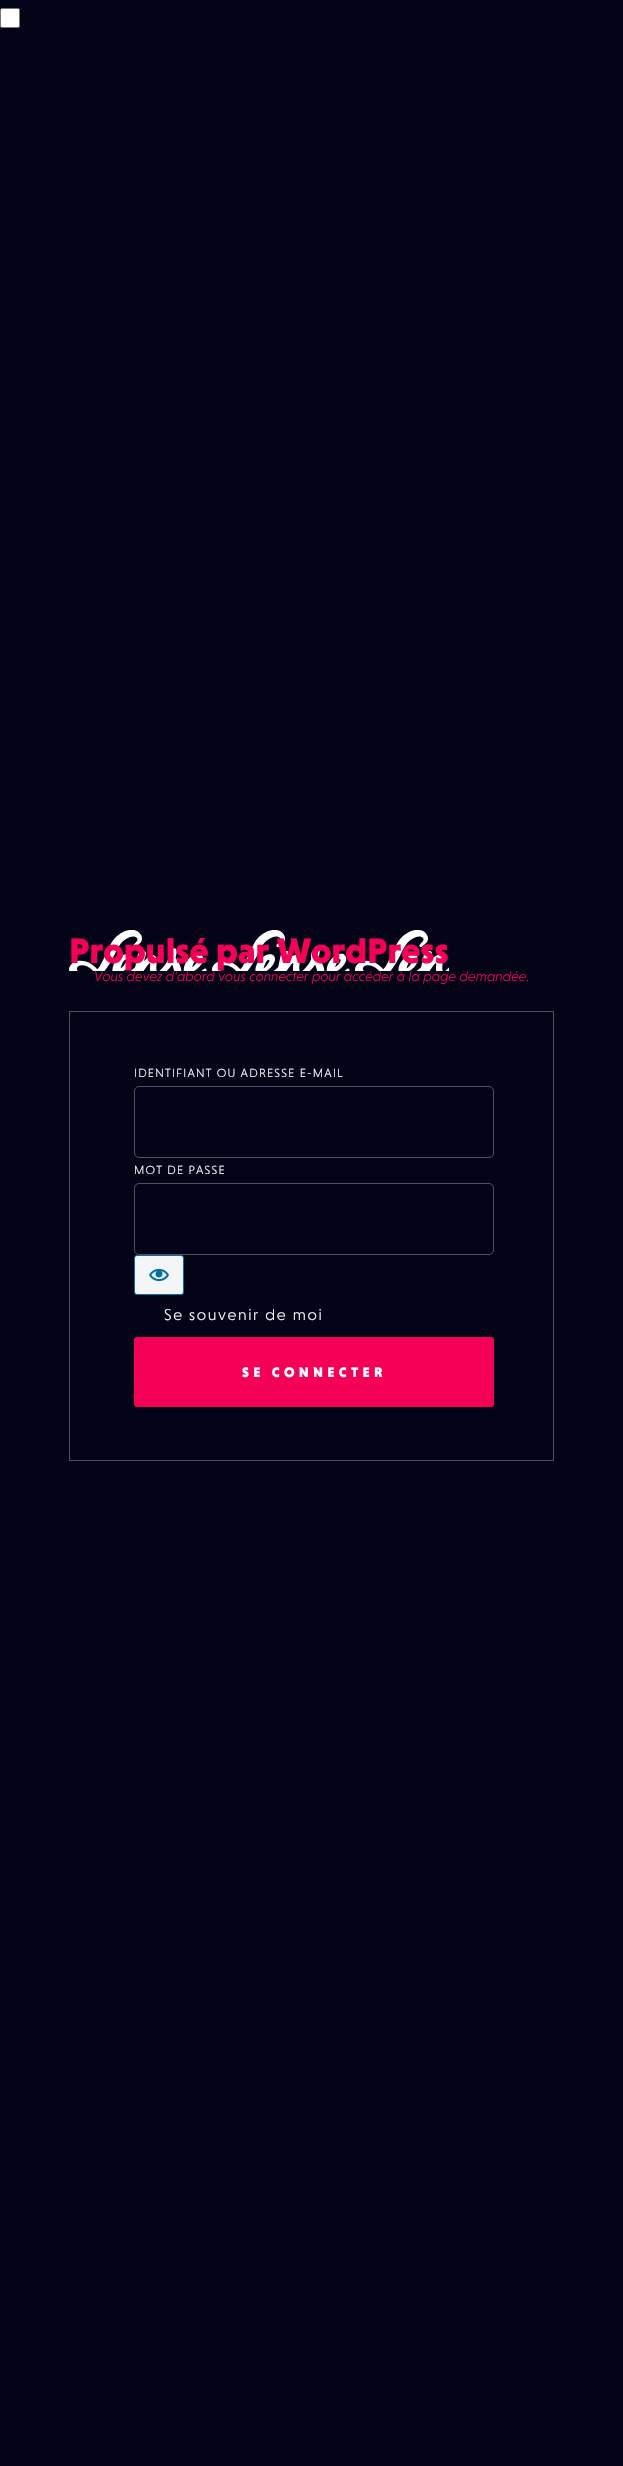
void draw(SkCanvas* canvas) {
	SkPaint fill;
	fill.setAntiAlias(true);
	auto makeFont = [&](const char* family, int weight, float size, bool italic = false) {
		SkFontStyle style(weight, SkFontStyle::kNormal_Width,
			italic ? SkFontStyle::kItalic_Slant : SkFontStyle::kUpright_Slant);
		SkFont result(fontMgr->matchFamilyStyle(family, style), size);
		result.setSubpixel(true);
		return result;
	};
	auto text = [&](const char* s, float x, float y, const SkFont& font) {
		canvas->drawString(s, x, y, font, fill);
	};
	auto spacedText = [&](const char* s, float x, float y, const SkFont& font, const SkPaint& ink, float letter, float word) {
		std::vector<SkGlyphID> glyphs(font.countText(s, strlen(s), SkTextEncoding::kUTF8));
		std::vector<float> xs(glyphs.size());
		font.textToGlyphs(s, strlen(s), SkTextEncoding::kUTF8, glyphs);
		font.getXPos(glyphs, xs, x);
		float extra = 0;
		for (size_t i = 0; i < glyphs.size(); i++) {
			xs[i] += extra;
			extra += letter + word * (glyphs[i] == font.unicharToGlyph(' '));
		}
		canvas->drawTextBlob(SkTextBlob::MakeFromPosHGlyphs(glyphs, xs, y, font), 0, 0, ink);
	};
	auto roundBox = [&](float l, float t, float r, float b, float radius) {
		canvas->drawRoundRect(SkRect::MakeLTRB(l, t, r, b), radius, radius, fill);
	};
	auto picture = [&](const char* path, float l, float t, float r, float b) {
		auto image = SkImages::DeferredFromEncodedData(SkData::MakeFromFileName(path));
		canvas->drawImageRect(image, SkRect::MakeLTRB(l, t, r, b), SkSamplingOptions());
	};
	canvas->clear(0xFF040418);
	picture("image0.png", 69, 930, 449, 971);
	fill.setStyle(SkPaint::kStroke_Style);
	fill.setStrokeWidth(1);
	fill.setColor(0xFF4F4F5D);
	canvas->drawRect(SkRect::MakeLTRB(69.5f, 1011.5f, 553.5f, 1460.5f), fill);
	canvas->drawRoundRect(SkRect::MakeLTRB(134.5f, 1086.5f, 493.5f, 1157.5f), 4.5f, 4.5f, fill);
	canvas->drawRoundRect(SkRect::MakeLTRB(134.5f, 1183.5f, 493.5f, 1254.5f), 4.5f, 4.5f, fill);
	fill.setStyle(SkPaint::kFill_Style);
	fill.setColor(0xFFF3F5F6);
	canvas->drawRoundRect(SkRect::MakeLTRB(134.5f, 1255.5f, 183.5f, 1294.5f), 2.5f, 2.5f, fill);
	fill.setStyle(SkPaint::kStroke_Style);
	fill.setColor(0xFF0071A1);
	canvas->drawRoundRect(SkRect::MakeLTRB(134.5f, 1255.5f, 183.5f, 1294.5f), 2.5f, 2.5f, fill);
	picture("image1.png", 149, 1268, 169, 1282);
	fill.setStyle(SkPaint::kFill_Style);
	fill.setColor(0xFFFFFFFF);
	canvas->drawRoundRect(SkRect::MakeLTRB(0.5f, 8.5f, 19.5f, 27.5f), 1.5f, 1.5f, fill);
	fill.setStyle(SkPaint::kStroke_Style);
	fill.setColor(0xFF767676);
	canvas->drawRoundRect(SkRect::MakeLTRB(0.5f, 8.5f, 19.5f, 27.5f), 1.5f, 1.5f, fill);
	fill.setStyle(SkPaint::kFill_Style);
	fill.setColor(0xFFF50057);
	roundBox(134, 1337, 494, 1407, 3);
	auto font1 = makeFont("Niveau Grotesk", 900, 36);
	text("Propulsé par WordPress", 69, 963, font1);
	auto font2 = makeFont("Niveau Grotesk", 300, 14, true);
	text("Vous devez d'abord vous connecter pour accéder à la page demandée.", 94, 981, font2);
	auto font3 = makeFont("Niveau Grotesk", 300, 12);
	fill.setColor(0xFFFFFFFF);
	spacedText("IDENTIFIANT OU ADRESSE E-MAIL", 134, 1077, font3, fill, 1.2f, 0);
	spacedText("MOT DE PASSE", 134, 1174, font3, fill, 1.2f, 0);
	auto font4 = makeFont("Niveau Grotesk", 300, 16);
	spacedText("Se souvenir de moi", 164, 1320, font4, fill, 1.6f, 0);
	auto font5 = makeFont("Niveau Grotesk", 900, 14);
	spacedText("SE CONNECTER", 242, 1377, font5, fill, 4.25f, 0);
}
